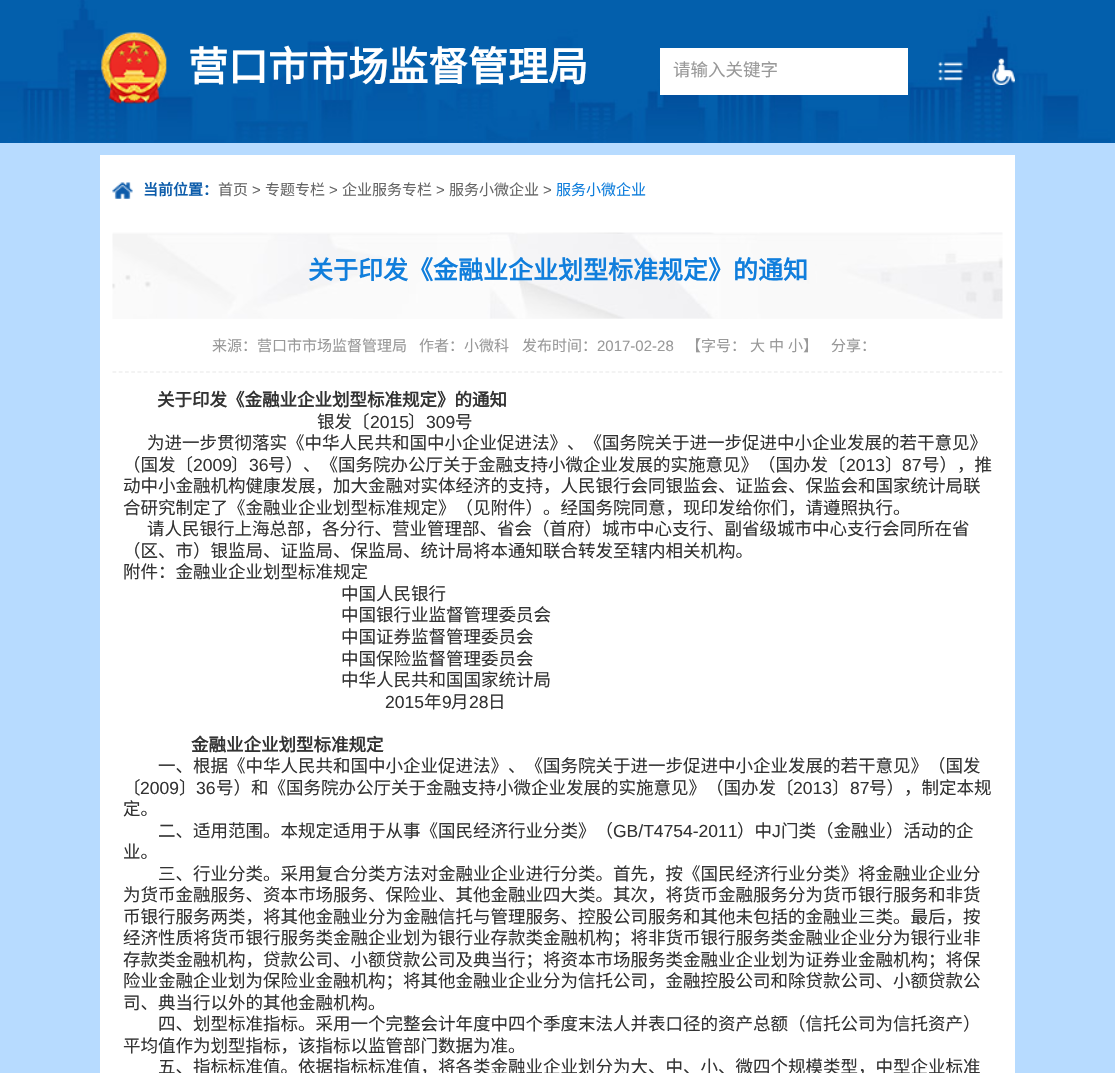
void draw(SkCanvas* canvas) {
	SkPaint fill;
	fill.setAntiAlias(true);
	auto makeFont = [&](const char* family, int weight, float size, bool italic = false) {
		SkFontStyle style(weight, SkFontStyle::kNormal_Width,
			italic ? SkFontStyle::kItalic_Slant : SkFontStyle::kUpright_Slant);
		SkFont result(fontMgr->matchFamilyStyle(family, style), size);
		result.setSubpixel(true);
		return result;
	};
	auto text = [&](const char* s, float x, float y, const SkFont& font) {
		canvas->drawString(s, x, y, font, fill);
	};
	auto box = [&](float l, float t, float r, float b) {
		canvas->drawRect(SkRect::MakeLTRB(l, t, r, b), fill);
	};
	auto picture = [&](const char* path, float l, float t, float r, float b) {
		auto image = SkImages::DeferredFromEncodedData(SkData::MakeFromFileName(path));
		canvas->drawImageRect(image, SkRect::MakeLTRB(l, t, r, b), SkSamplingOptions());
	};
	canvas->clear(0xFFB7DBFF);
	fill.setColor(0xFF035EAC);
	box(0, 0, 1115, 143);
	picture("image0.png", 0, 0, 1111, 143);
	picture("image1.png", 101, 32, 167, 104);
	fill.setColor(0xFFFFFFFF);
	box(660, 48, 908, 95);
	picture("image2.png", 938, 62, 963, 81);
	picture("image3.png", 992, 58, 1015, 85);
	box(100, 155, 1015, 1073);
	picture("image4.png", 112, 182, 133, 199);
	picture("image5.png", 112, 232, 1003, 319);
	fill.setStyle(SkPaint::kStroke_Style);
	fill.setStrokeWidth(1.2f);
	fill.setColor(0xFFE8E8E8);
	fill.setPathEffect(SkDashPathEffect::Make({{3.75f, 2.49f}}, 0));
	canvas->drawPath(SkPathBuilder().moveTo(112.5f, 372).lineTo(1002.5f, 372).detach(), fill);
	fill.setPathEffect(nullptr);
	auto font1 = makeFont("Noto Sans CJK SC", 700, 40);
	fill.setStyle(SkPaint::kFill_Style);
	fill.setColor(0xFFFFFFFF);
	text("营口市市场监督管理局", 188, 81, font1);
	auto font2 = makeFont("Noto Sans CJK SC", 400, 17.5f);
	fill.setColor(0xFF999999);
	text("请输入关键字", 673, 76, font2);
	auto font3 = makeFont("Noto Sans CJK SC", 700, 15);
	fill.setColor(0xFF0C5CAA);
	text("当前位置：", 143, 195, font3);
	auto font4 = makeFont("Noto Sans CJK SC", 400, 15);
	fill.setColor(0xFF666666);
	text("首页", 218, 195, font4);
	auto font5 = makeFont("Liberation Sans", 400, 15);
	text(">", 252, 195, font5);
	text("专题专栏", 265, 195, font4);
	text(">", 329, 195, font5);
	text("企业服务专栏", 342, 195, font4);
	text(">", 436, 195, font5);
	text("服务小微企业", 449, 195, font4);
	text(">", 543, 195, font5);
	fill.setColor(0xFF107EDC);
	text("服务小微企业", 556, 195, font4);
	auto font6 = makeFont("Noto Sans CJK SC", 700, 25);
	text("关于印发《金融业企业划型标准规定》的通知", 308, 279, font6);
	fill.setColor(0xFF999999);
	text("来源：营口市市场监督管理局", 212, 351, font4);
	text("作者：小微科", 419, 351, font4);
	text("发布时间：", 522, 351, font4);
	text("2017-02-28", 597, 351, font5);
	text("【字号：", 686, 351, font4);
	text("大", 750, 351, font4);
	text("中", 769, 351, font4);
	text("小】", 788, 351, font4);
	text("分享：", 831, 351, font4);
	auto font7 = makeFont("Noto Sans CJK SC", 700, 17.5f);
	fill.setColor(0xFF333333);
	text("关于印发《金融业企业划型标准规定》的通知", 157, 406, font7);
	text("银发〔", 317, 428, font2);
	auto font8 = makeFont("Liberation Sans", 400, 17.5f);
	text("2015", 370, 428, font8);
	text("〕", 408, 428, font2);
	text("309", 426, 428, font8);
	text("号", 455, 428, font2);
	text("为进一步贯彻落实《中华人民共和国中小企业促进法》、《国务院关于进一步促进中小企业发展的若干意见》", 147, 449, font2);
	text("（国发〔", 123, 471, font2);
	text("2009", 193, 471, font8);
	text("〕", 231, 471, font2);
	text("36", 249, 471, font8);
	text("号）、《国务院办公厅关于金融支持小微企业发展的实施意见》（国办发〔", 268, 471, font2);
	text("2013", 846, 471, font8);
	text("〕", 885, 471, font2);
	text("87", 902, 471, font8);
	text("号），推", 922, 471, font2);
	text("动中小金融机构健康发展，加大金融对实体经济的支持，人民银行会同银监会、证监会、保监会和国家统计局联", 123, 492, font2);
	text("合研究制定了《金融业企业划型标准规定》（见附件）。经国务院同意，现印发给你们，请遵照执行。", 123, 514, font2);
	text("请人民银行上海总部，各分行、营业管理部、省会（首府）城市中心支行、副省级城市中心支行会同所在省", 147, 535, font2);
	text("（区、市）银监局、证监局、保监局、统计局将本通知联合转发至辖内相关机构。", 123, 557, font2);
	text("附件：金融业企业划型标准规定", 123, 578, font2);
	text("中国人民银行", 341, 600, font2);
	text("中国银行业监督管理委员会", 341, 621, font2);
	text("中国证券监督管理委员会", 341, 643, font2);
	text("中国保险监督管理委员会", 341, 665, font2);
	text("中华人民共和国国家统计局", 341, 686, font2);
	text("2015", 385, 708, font8);
	text("年", 424, 708, font2);
	text("9", 442, 708, font8);
	text("月", 451, 708, font2);
	text("28", 469, 708, font8);
	text("日", 488, 708, font2);
	text("金融业企业划型标准规定", 191, 751, font7);
	text("一、根据《中华人民共和国中小企业促进法》、《国务院关于进一步促进中小企业发展的若干意见》（国发", 158, 772, font2);
	text("〔", 123, 794, font2);
	text("2009", 140, 794, font8);
	text("〕", 179, 794, font2);
	text("36", 196, 794, font8);
	text("号）和《国务院办公厅关于金融支持小微企业发展的实施意见》（国办发〔", 216, 794, font2);
	text("2013", 793, 794, font8);
	text("〕", 832, 794, font2);
	text("87", 850, 794, font8);
	text("号），制定本规", 869, 794, font2);
	text("定。", 123, 815, font2);
	text("二、适用范围。本规定适用于从事《国民经济行业分类》（", 158, 837, font2);
	text("GB/T4754-2011", 613, 837, font8);
	text("）中", 737, 837, font2);
	text("J", 772, 837, font8);
	text("门类（金融业）活动的企", 781, 837, font2);
	text("业。", 123, 858, font2);
	text("三、行业分类。采用复合分类方法对金融业企业进行分类。首先，按《国民经济行业分类》将金融业企业分", 158, 880, font2);
	text("为货币金融服务、资本市场服务、保险业、其他金融业四大类。其次，将货币金融服务分为货币银行服务和非货", 123, 901, font2);
	text("币银行服务两类，将其他金融业分为金融信托与管理服务、控股公司服务和其他未包括的金融业三类。最后，按", 123, 923, font2);
	text("经济性质将货币银行服务类金融企业划为银行业存款类金融机构；将非货币银行服务类金融业企业分为银行业非", 123, 944, font2);
	text("存款类金融机构，贷款公司、小额贷款公司及典当行；将资本市场服务类金融业企业划为证券业金融机构；将保", 123, 966, font2);
	text("险业金融企业划为保险业金融机构；将其他金融业企业分为信托公司，金融控股公司和除贷款公司、小额贷款公", 123, 987, font2);
	text("司、典当行以外的其他金融机构。", 123, 1009, font2);
	text("四、划型标准指标。采用一个完整会计年度中四个季度末法人并表口径的资产总额（信托公司为信托资产）", 158, 1030, font2);
	text("平均值作为划型指标，该指标以监管部门数据为准。", 123, 1052, font2);
	text("五、指标标准值。依据指标标准值，将各类金融业企业划分为大、中、小、微四个规模类型，中型企业标准", 158, 1073, font2);
}
